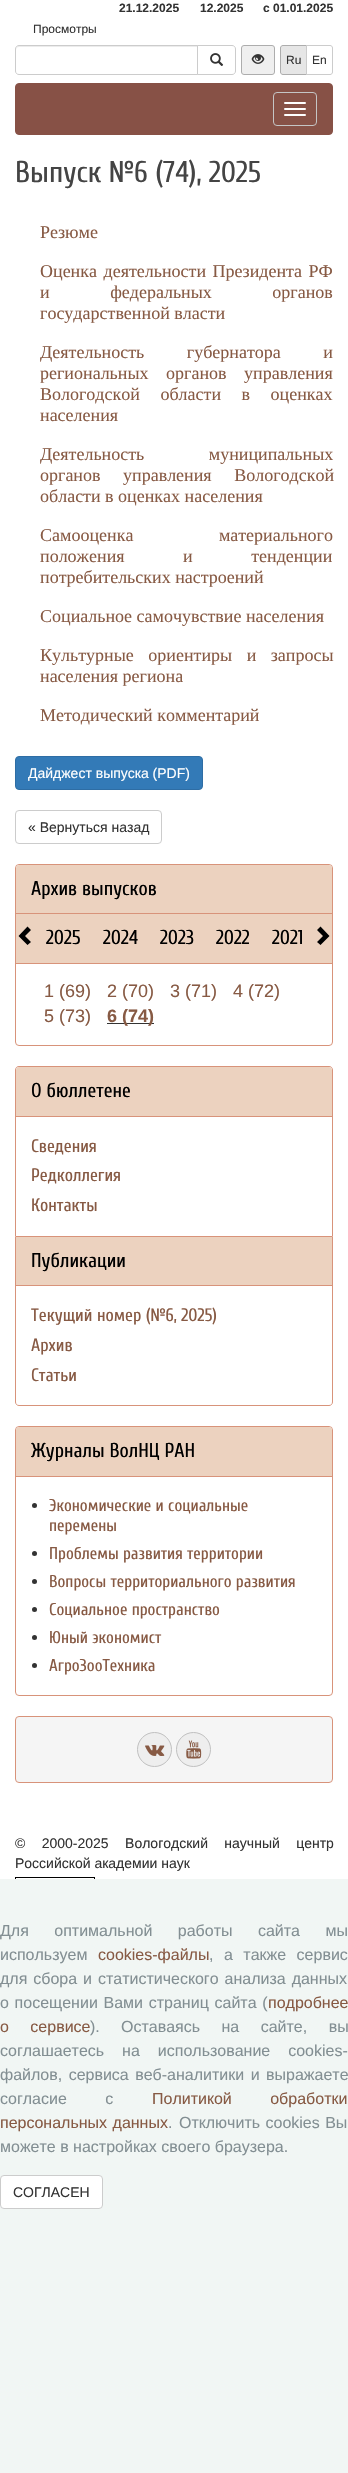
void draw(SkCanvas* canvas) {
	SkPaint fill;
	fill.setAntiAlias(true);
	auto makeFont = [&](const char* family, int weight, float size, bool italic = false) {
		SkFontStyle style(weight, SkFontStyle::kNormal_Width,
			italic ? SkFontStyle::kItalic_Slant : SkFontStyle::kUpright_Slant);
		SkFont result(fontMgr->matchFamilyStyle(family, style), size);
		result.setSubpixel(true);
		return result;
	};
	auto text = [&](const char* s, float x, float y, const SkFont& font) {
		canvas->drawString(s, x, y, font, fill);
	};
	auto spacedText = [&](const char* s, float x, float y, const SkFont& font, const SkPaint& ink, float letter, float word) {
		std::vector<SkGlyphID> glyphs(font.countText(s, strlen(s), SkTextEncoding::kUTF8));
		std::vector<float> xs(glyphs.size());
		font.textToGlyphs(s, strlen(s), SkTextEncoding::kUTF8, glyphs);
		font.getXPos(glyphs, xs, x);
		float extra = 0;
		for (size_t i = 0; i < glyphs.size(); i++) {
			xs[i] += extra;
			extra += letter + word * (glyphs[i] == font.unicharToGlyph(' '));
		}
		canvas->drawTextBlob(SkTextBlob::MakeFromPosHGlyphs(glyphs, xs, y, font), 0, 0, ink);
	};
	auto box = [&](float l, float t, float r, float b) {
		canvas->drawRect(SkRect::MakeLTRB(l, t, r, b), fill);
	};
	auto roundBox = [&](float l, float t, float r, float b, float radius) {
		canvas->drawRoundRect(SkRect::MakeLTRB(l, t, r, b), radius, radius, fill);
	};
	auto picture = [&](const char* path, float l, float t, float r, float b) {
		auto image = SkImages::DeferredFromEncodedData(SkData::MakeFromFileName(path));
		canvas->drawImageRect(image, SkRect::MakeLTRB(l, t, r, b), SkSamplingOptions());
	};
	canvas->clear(0xFFFFFFFF);
	fill.setColor(0xFFECECEC);
	canvas->drawPath(SkPathBuilder().moveTo(19, 47).lineTo(197, 47).lineTo(197, 46).lineTo(18, 46).cubicTo(16, 47, 16, 48, 16, 50).cubicTo(16, 48, 17, 47, 19, 47).close().detach(), fill);
	fill.setStyle(SkPaint::kStroke_Style);
	fill.setStrokeWidth(1);
	fill.setColor(0xFFCCCCCC);
	canvas->drawPath(SkPathBuilder().moveTo(19, 45.5f).lineTo(197.5f, 45.5f).lineTo(197.5f, 74.5f).lineTo(19, 74.5f).cubicTo(17, 74.5f, 15.5f, 73, 15.5f, 71).lineTo(15.5f, 49).cubicTo(15.5f, 47, 17, 45.5f, 19, 45.5f).close().detach(), fill);
	fill.setStyle(SkPaint::kFill_Style);
	fill.setColor(0xFFFFFFFF);
	canvas->drawPath(SkPathBuilder().moveTo(197.5f, 45.5f).lineTo(232, 45.5f).cubicTo(234, 45.5f, 235.5f, 47, 235.5f, 49).lineTo(235.5f, 71).cubicTo(235.5f, 73, 234, 74.5f, 232, 74.5f).lineTo(197.5f, 74.5f).close().detach(), fill);
	fill.setStyle(SkPaint::kStroke_Style);
	fill.setColor(0xFFCCCCCC);
	canvas->drawPath(SkPathBuilder().moveTo(197.5f, 45.5f).lineTo(232, 45.5f).cubicTo(234, 45.5f, 235.5f, 47, 235.5f, 49).lineTo(235.5f, 71).cubicTo(235.5f, 73, 234, 74.5f, 232, 74.5f).lineTo(197.5f, 74.5f).close().detach(), fill);
	picture("image0.png", 210, 53, 224, 66);
	fill.setStyle(SkPaint::kFill_Style);
	fill.setColor(0xFFEFEFEF);
	canvas->drawRoundRect(SkRect::MakeLTRB(241.5f, 45.5f, 274.5f, 74.5f), 2.5f, 2.5f, fill);
	fill.setStyle(SkPaint::kStroke_Style);
	fill.setColor(0xFFADADAD);
	canvas->drawRoundRect(SkRect::MakeLTRB(241.5f, 45.5f, 274.5f, 74.5f), 2.5f, 2.5f, fill);
	picture("image1.png", 251, 54, 265, 64);
	fill.setStyle(SkPaint::kFill_Style);
	fill.setColor(0xFFE6E6E6);
	canvas->drawPath(SkPathBuilder().moveTo(283, 45.5f).lineTo(306.5f, 45.5f).lineTo(306.5f, 74.5f).lineTo(283, 74.5f).cubicTo(281.5f, 74.5f, 280.5f, 73.5f, 280.5f, 72).lineTo(280.5f, 48).cubicTo(280.5f, 46.5f, 281.5f, 45.5f, 283, 45.5f).close().detach(), fill);
	fill.setStyle(SkPaint::kStroke_Style);
	fill.setColor(0xFFADADAD);
	canvas->drawPath(SkPathBuilder().moveTo(283, 45.5f).lineTo(306.5f, 45.5f).lineTo(306.5f, 74.5f).lineTo(283, 74.5f).cubicTo(281.5f, 74.5f, 280.5f, 73.5f, 280.5f, 72).lineTo(280.5f, 48).cubicTo(280.5f, 46.5f, 281.5f, 45.5f, 283, 45.5f).close().detach(), fill);
	fill.setStyle(SkPaint::kFill_Style);
	fill.setColor(0xFFFFFFFF);
	canvas->drawPath(SkPathBuilder().moveTo(306.5f, 45.5f).lineTo(330, 45.5f).cubicTo(331.5f, 45.5f, 332.5f, 46.5f, 332.5f, 48).lineTo(332.5f, 72).cubicTo(332.5f, 73.5f, 331.5f, 74.5f, 330, 74.5f).lineTo(306.5f, 74.5f).close().detach(), fill);
	fill.setStyle(SkPaint::kStroke_Style);
	fill.setColor(0xFFCCCCCC);
	canvas->drawPath(SkPathBuilder().moveTo(306.5f, 45.5f).lineTo(330, 45.5f).cubicTo(331.5f, 45.5f, 332.5f, 46.5f, 332.5f, 48).lineTo(332.5f, 72).cubicTo(332.5f, 73.5f, 331.5f, 74.5f, 330, 74.5f).lineTo(306.5f, 74.5f).close().detach(), fill);
	fill.setStyle(SkPaint::kFill_Style);
	fill.setColor(0xFF875146);
	canvas->drawRoundRect(SkRect::MakeLTRB(15.5f, 83.5f, 332.5f, 134.5f), 3.5f, 3.5f, fill);
	fill.setStyle(SkPaint::kStroke_Style);
	canvas->drawRoundRect(SkRect::MakeLTRB(15.5f, 83.5f, 332.5f, 134.5f), 3.5f, 3.5f, fill);
	fill.setColor(0xFFC5C5C5);
	canvas->drawRoundRect(SkRect::MakeLTRB(273.5f, 92.5f, 316.5f, 125.5f), 3.5f, 3.5f, fill);
	fill.setStyle(SkPaint::kFill_Style);
	fill.setColor(0xFFFFFFFF);
	roundBox(284, 102, 306, 104, 1);
	roundBox(284, 108, 306, 110, 1);
	roundBox(284, 114, 306, 116, 1);
	fill.setColor(0xFF337AB7);
	canvas->drawRoundRect(SkRect::MakeLTRB(15.5f, 756.5f, 202.5f, 789.5f), 3.5f, 3.5f, fill);
	fill.setStyle(SkPaint::kStroke_Style);
	fill.setColor(0xFF2E6DA4);
	canvas->drawRoundRect(SkRect::MakeLTRB(15.5f, 756.5f, 202.5f, 789.5f), 3.5f, 3.5f, fill);
	fill.setColor(0xFFCCCCCC);
	canvas->drawRoundRect(SkRect::MakeLTRB(15.5f, 810.5f, 161.5f, 843.5f), 3.5f, 3.5f, fill);
	fill.setColor(0xFFD8937A);
	canvas->drawRoundRect(SkRect::MakeLTRB(15.5f, 864.5f, 332.5f, 1045.5f), 3.5f, 3.5f, fill);
	fill.setStyle(SkPaint::kFill_Style);
	fill.setColor(0xFFECD2BF);
	canvas->drawPath(SkPathBuilder().moveTo(19, 865).lineTo(329, 865).cubicTo(330.5f, 865, 332, 866.5f, 332, 868).lineTo(332, 914).lineTo(16, 914).lineTo(16, 868).cubicTo(16, 866.5f, 17.5f, 865, 19, 865).close().detach(), fill);
	fill.setColor(0xFFD8937A);
	box(16, 913, 332, 914);
	fill.setColor(0xFFECD2BF);
	box(16, 914, 332, 963);
	fill.setColor(0xFF000000);
	canvas->drawPath(SkPathBuilder().moveTo(31, 930).lineTo(25, 936).lineTo(31, 942).lineTo(27.5f, 945).lineTo(18.5f, 936).lineTo(27.5f, 926.5f).close().detach(), fill);
	fill.setColor(0xFFD8937A);
	box(16, 963, 332, 964);
	fill.setColor(0xFF333333);
	box(107, 1023, 154, 1024);
	fill.setColor(0xFF000000);
	canvas->drawPath(SkPathBuilder().moveTo(329.5f, 936).lineTo(320.5f, 945).lineTo(317, 942).lineTo(323, 936).lineTo(317, 930).lineTo(320.5f, 926.5f).close().detach(), fill);
	fill.setColor(0xFFD8937A);
	canvas->drawPath(SkPathBuilder(SkPathFillType::kEvenOdd).moveTo(19, 1066).lineTo(329, 1066).cubicTo(331, 1066, 333, 1068, 333, 1070).lineTo(333, 1236).lineTo(15, 1236).lineTo(15, 1070).cubicTo(15, 1068, 17, 1066, 19, 1066).close().moveTo(19, 1067).lineTo(329, 1067).cubicTo(331, 1067, 332, 1068, 332, 1070).lineTo(332, 1236).lineTo(16, 1236).lineTo(16, 1070).cubicTo(16, 1068, 17, 1067, 19, 1067).close().detach(), fill);
	fill.setColor(0xFFECD2BF);
	canvas->drawPath(SkPathBuilder().moveTo(19, 1067).lineTo(329, 1067).cubicTo(330.5f, 1067, 332, 1068.5f, 332, 1070).lineTo(332, 1117).lineTo(16, 1117).lineTo(16, 1070).cubicTo(16, 1068.5f, 17.5f, 1067, 19, 1067).close().detach(), fill);
	fill.setColor(0xFFD8937A);
	box(16, 1116, 332, 1117);
	fill.setStyle(SkPaint::kStroke_Style);
	canvas->drawPath(SkPathBuilder().moveTo(15.5f, 1236.5f).lineTo(332.5f, 1236.5f).lineTo(332.5f, 1402).cubicTo(332.5f, 1404, 331, 1405.5f, 329, 1405.5f).lineTo(19, 1405.5f).cubicTo(17, 1405.5f, 15.5f, 1404, 15.5f, 1402).close().detach(), fill);
	fill.setStyle(SkPaint::kFill_Style);
	fill.setColor(0xFFECD2BF);
	box(16, 1237, 332, 1285);
	fill.setColor(0xFFD8937A);
	box(16, 1285, 332, 1286);
	fill.setStyle(SkPaint::kStroke_Style);
	canvas->drawRoundRect(SkRect::MakeLTRB(15.5f, 1426.5f, 332.5f, 1695.5f), 3.5f, 3.5f, fill);
	fill.setStyle(SkPaint::kFill_Style);
	fill.setColor(0xFFECD2BF);
	canvas->drawPath(SkPathBuilder().moveTo(19, 1427).lineTo(329, 1427).cubicTo(330.5f, 1427, 332, 1428.5f, 332, 1430).lineTo(332, 1477).lineTo(16, 1477).lineTo(16, 1430).cubicTo(16, 1428.5f, 17.5f, 1427, 19, 1427).close().detach(), fill);
	fill.setColor(0xFFD8937A);
	box(16, 1476, 332, 1477);
	fill.setColor(0xFF333333);
	canvas->drawCircle(34.5f, 1505.5f, 2.5f, fill);
	canvas->drawCircle(34.5f, 1553.5f, 2.5f, fill);
	canvas->drawCircle(34.5f, 1581.5f, 2.5f, fill);
	canvas->drawCircle(34.5f, 1609.5f, 2.5f, fill);
	canvas->drawCircle(34.5f, 1637.5f, 2.5f, fill);
	canvas->drawCircle(34.5f, 1665.5f, 2.5f, fill);
	fill.setColor(0xFFF5F5F5);
	canvas->drawRoundRect(SkRect::MakeLTRB(15.5f, 1716.5f, 332.5f, 1782.5f), 3.5f, 3.5f, fill);
	fill.setStyle(SkPaint::kStroke_Style);
	fill.setColor(0xFFD8937A);
	canvas->drawRoundRect(SkRect::MakeLTRB(15.5f, 1716.5f, 332.5f, 1782.5f), 3.5f, 3.5f, fill);
	fill.setStyle(SkPaint::kFill_Style);
	fill.setColor(0xFFEEEEEE);
	canvas->drawCircle(154.5f, 1749.5f, 17, fill);
	fill.setStyle(SkPaint::kStroke_Style);
	fill.setColor(0xFFC0C0C0);
	canvas->drawCircle(154.5f, 1749.5f, 17, fill);
	picture("image2.png", 145, 1745, 165, 1756);
	fill.setStyle(SkPaint::kFill_Style);
	fill.setColor(0xFFEEEEEE);
	canvas->drawCircle(193.5f, 1749.5f, 17, fill);
	fill.setStyle(SkPaint::kStroke_Style);
	fill.setColor(0xFFC0C0C0);
	canvas->drawCircle(193.5f, 1749.5f, 17, fill);
	picture("image3.png", 186, 1740, 202, 1759);
	picture("image4.png", 15, 1877, 95, 1879);
	fill.setStyle(SkPaint::kFill_Style);
	fill.setColor(0xFFF1F6F4);
	box(0, 1879, 348, 2473);
	fill.setColor(0xFFFFFFFF);
	canvas->drawRoundRect(SkRect::MakeLTRB(0.5f, 2175.5f, 102.5f, 2208.5f), 3.5f, 3.5f, fill);
	fill.setStyle(SkPaint::kStroke_Style);
	fill.setColor(0xFFCCCCCC);
	canvas->drawRoundRect(SkRect::MakeLTRB(0.5f, 2175.5f, 102.5f, 2208.5f), 3.5f, 3.5f, fill);
	auto font1 = makeFont("Liberation Sans", 700, 12);
	fill.setStyle(SkPaint::kFill_Style);
	fill.setColor(0xFF333333);
	text("21.12.2025", 119, 12, font1);
	text("12.2025", 200, 12, font1);
	text("с 01.01.2025", 263, 12, font1);
	auto font2 = makeFont("Liberation Sans", 400, 12);
	text("Просмотры", 33, 33, font2);
	text("Ru", 286, 64, font2);
	text("En", 312, 64, font2);
	auto font3 = makeFont("Cuprum", 400, 30);
	fill.setColor(0xFF444444);
	text("Выпуск №6 (74), 2025", 15, 182, font3);
	auto font4 = makeFont("Liberation Serif", 400, 18);
	fill.setColor(0xFF875A44);
	text("Резюме", 40, 238, font4);
	spacedText("Оценка деятельности Президента РФ", 40, 277, font4, fill, 0, 2);
	spacedText("и федеральных органов", 40, 298, font4, fill, 0, 56);
	text("государственной власти", 40, 319, font4);
	spacedText("Деятельность губернатора и", 40, 358, font4, fill, 0, 38);
	spacedText("региональных органов управления", 40, 379, font4, fill, 0, 13);
	spacedText("Вологодской области в оценках", 40, 400, font4, fill, 0, 16);
	text("населения", 40, 421, font4);
	spacedText("Деятельность муниципальных", 40, 460, font4, fill, 0, 60);
	spacedText("органов управления Вологодской", 40, 481, font4, fill, 0, 18);
	text("области в оценках населения", 40, 502, font4);
	spacedText("Самооценка материального", 40, 541, font4, fill, 0, 81);
	spacedText("положения и тенденции", 40, 562, font4, fill, 0, 54);
	text("потребительских настроений", 40, 583, font4);
	text("Социальное самочувствие населения", 40, 622, font4);
	spacedText("Культурные ориентиры и запросы", 40, 661, font4, fill, 0, 10);
	text("населения региона", 40, 682, font4);
	text("Методический комментарий", 40, 721, font4);
	auto font5 = makeFont("Liberation Sans", 400, 14);
	fill.setColor(0xFFFFFFFF);
	text("Дайджест выпуска (PDF)", 28, 778, font5);
	fill.setColor(0xFF333333);
	text("« Вернуться назад", 28, 832, font5);
	auto font6 = makeFont("Cuprum", 400, 20);
	fill.setColor(0xFF000000);
	text("Архив выпусков", 31, 895, font6);
	text("2025", 46, 944, font6);
	text("2024", 103, 944, font6);
	text("2023", 160, 944, font6);
	text("2022", 216, 944, font6);
	text("2021", 272, 944, font6);
	auto font7 = makeFont("Liberation Sans", 400, 18);
	fill.setColor(0xFF875A44);
	text("1 (69)", 44, 997, font7);
	text("2 (70)", 107, 997, font7);
	text("3 (71)", 170, 997, font7);
	text("4 (72)", 233, 997, font7);
	text("5 (73)", 44, 1022, font7);
	auto font8 = makeFont("Liberation Sans", 700, 18);
	text("6 (74)", 107, 1022, font8);
	fill.setColor(0xFF000000);
	text("О бюллетене", 31, 1097, font6);
	auto font9 = makeFont("Cuprum", 400, 18);
	fill.setColor(0xFF875A44);
	text("Сведения", 31, 1152, font9);
	text("Редколлегия", 31, 1181, font9);
	text("Контакты", 31, 1211, font9);
	fill.setColor(0xFF000000);
	text("Публикации", 31, 1267, font6);
	fill.setColor(0xFF875A44);
	text("Текущий номер (№6, 2025)", 31, 1321, font9);
	text("Архив", 31, 1351, font9);
	text("Статьи", 31, 1381, font9);
	fill.setColor(0xFF000000);
	text("Журналы ВолНЦ РАН", 31, 1457, font6);
	auto font10 = makeFont("Cuprum", 400, 17);
	fill.setColor(0xFF875A44);
	text("Экономические и социальные", 49, 1511, font10);
	text("перемены", 49, 1531, font10);
	text("Проблемы развития территории", 49, 1559, font10);
	text("Вопросы территориального развития", 49, 1587, font10);
	text("Социальное пространство", 49, 1615, font10);
	text("Юный экономист", 49, 1643, font10);
	text("АгроЗооТехника", 49, 1671, font10);
	fill.setColor(0xFF333333);
	spacedText("© 2000-2025 Вологодский научный центр", 15, 1848, font5, fill, 0, 12.5f);
	text("Российской академии наук", 15, 1868, font5);
	auto font11 = makeFont("Liberation Sans", 400, 16);
	fill.setColor(0xFF838F93);
	spacedText("Для оптимальной работы сайта мы", 0, 1936, font11, fill, 0, 21);
	text("используем", 0, 1960, font11);
	fill.setColor(0xFF875A44);
	text("cookies-файлы", 98, 1960, font11);
	fill.setColor(0xFF838F93);
	text(",", 209, 1960, font11);
	spacedText("а также сервис", 224, 1960, font11, fill, 0, 6);
	spacedText("для сбора и статистического анализа данных", 0, 1984, font11, fill, 0, 1.5f);
	spacedText("о посещении Вами страниц сайта (", 0, 2008, font11, fill, 0, 1.25f);
	fill.setColor(0xFF875A44);
	text("подробнее", 268, 2008, font11);
	spacedText("о сервисе", 0, 2032, font11, fill, 0, 17);
	fill.setColor(0xFF838F93);
	text(").", 90, 2032, font11);
	spacedText("Оставаясь на сайте, вы", 121, 2032, font11, fill, 0, 17);
	spacedText("соглашаетесь на использование cookies-", 0, 2056, font11, fill, 0, 13.5f);
	spacedText("файлов, сервиса веб-аналитики и выражаете", 0, 2080, font11, fill, 0, 2);
	spacedText("согласие с", 0, 2104, font11, fill, 0, 34);
	fill.setColor(0xFF875A44);
	spacedText("Политикой обработки", 152, 2104, font11, fill, 0, 34);
	spacedText("персональных данных", 0, 2128, font11, fill, 0, 1);
	fill.setColor(0xFF838F93);
	text(".", 168, 2128, font11);
	spacedText("Отключить cookies Вы", 179, 2128, font11, fill, 0, 1);
	text("можете в настройках своего браузера.", 0, 2152, font11);
	fill.setColor(0xFF333333);
	text("СОГЛАСЕН", 13, 2197, font5);
}
